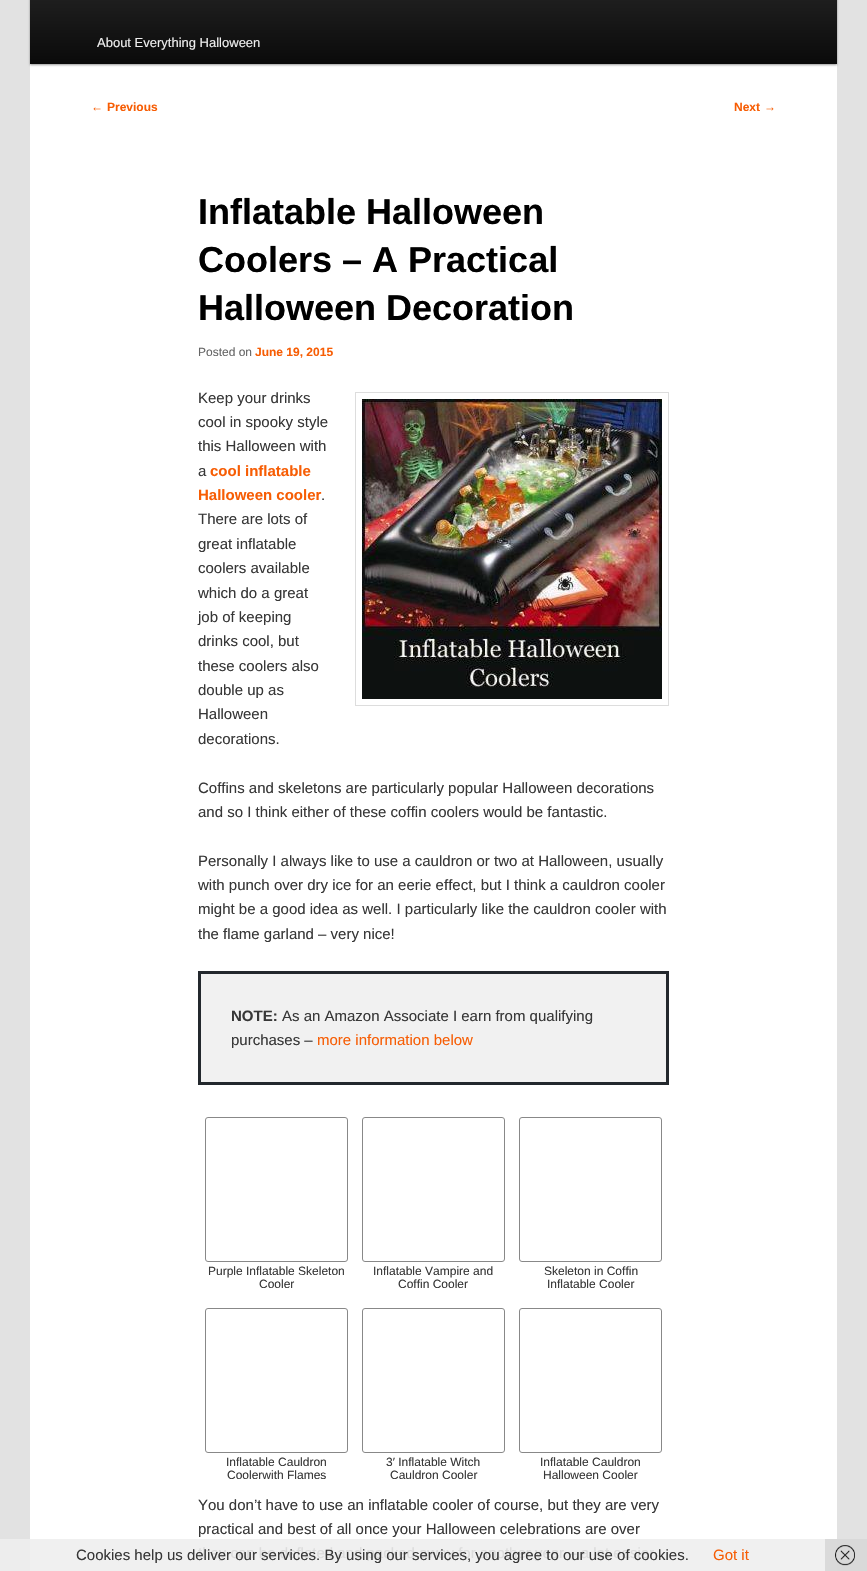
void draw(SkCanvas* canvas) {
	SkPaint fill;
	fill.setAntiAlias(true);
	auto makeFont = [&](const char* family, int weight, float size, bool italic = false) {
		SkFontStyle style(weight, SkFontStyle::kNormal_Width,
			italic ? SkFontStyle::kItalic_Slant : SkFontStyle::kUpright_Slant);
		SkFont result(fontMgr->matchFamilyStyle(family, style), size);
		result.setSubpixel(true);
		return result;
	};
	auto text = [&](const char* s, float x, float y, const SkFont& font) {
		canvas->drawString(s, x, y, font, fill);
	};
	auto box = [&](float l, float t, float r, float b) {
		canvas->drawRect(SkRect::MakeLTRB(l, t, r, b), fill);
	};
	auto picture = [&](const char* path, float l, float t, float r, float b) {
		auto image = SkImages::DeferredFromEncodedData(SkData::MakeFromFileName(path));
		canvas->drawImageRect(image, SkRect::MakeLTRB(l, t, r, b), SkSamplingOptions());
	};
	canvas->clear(0xFFE2E2E2);
	fill.setColor(0xFFEDEDED);
	box(0, 1539, 30, 1571);
	fill.setColor(0xFFD9D9D9);
	box(837, 1539, 867, 1571);
	fill.setColor(0xFFFFFFFF);
	box(30, 64, 837, 1539);
	fill.setColor(0xFFF0F0F0);
	box(30, 1539, 825, 1571);
	fill.setColor(0xFFDADADA);
	box(825, 1539, 837, 1571);
	fill.setColor(0x66000000);
	fill.setMaskFilter(SkMaskFilter::MakeBlur(kNormal_SkBlurStyle, 1));
	canvas->drawRect(SkRect::MakeLTRB(30, -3, 837, 65), fill);
	fill.setMaskFilter(nullptr);
	{
		const SkColor colors[] = {0xFF252525, 0xFF0A0A0A};
		const float stops[] = {0, 1};
		const SkPoint ends[] = {{434, -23}, {434, 64}};
		fill.setShader(SkGradientShader::MakeLinear(ends, colors, stops, 2, SkTileMode::kClamp));
		fill.setAlpha(255);
	}
	box(30, 0, 837, 64);
	fill.setStyle(SkPaint::kStroke_Style);
	fill.setStrokeWidth(1);
	fill.setShader(nullptr);
	fill.setColor(0xFFDDDDDD);
	canvas->drawRect(SkRect::MakeLTRB(355.5f, 392.5f, 668.5f, 705.5f), fill);
	picture("image0.png", 362, 399, 662, 699);
	fill.setStyle(SkPaint::kFill_Style);
	fill.setColor(0xFFF1F1F1);
	canvas->drawRect(SkRect::MakeLTRB(199.5f, 972.5f, 667.5f, 1083.5f), fill);
	fill.setStyle(SkPaint::kStroke_Style);
	fill.setStrokeWidth(3);
	fill.setColor(0xFF23282D);
	canvas->drawRect(SkRect::MakeLTRB(199.5f, 972.5f, 667.5f, 1083.5f), fill);
	fill.setStrokeWidth(1);
	fill.setColor(0xFF888888);
	canvas->drawRoundRect(SkRect::MakeLTRB(205.5f, 1117.5f, 347.5f, 1261.5f), 2.5f, 2.5f, fill);
	canvas->drawRoundRect(SkRect::MakeLTRB(362.5f, 1117.5f, 504.5f, 1261.5f), 2.5f, 2.5f, fill);
	canvas->drawRoundRect(SkRect::MakeLTRB(519.5f, 1117.5f, 661.5f, 1261.5f), 2.5f, 2.5f, fill);
	canvas->drawRoundRect(SkRect::MakeLTRB(205.5f, 1308.5f, 347.5f, 1452.5f), 2.5f, 2.5f, fill);
	canvas->drawRoundRect(SkRect::MakeLTRB(362.5f, 1308.5f, 504.5f, 1452.5f), 2.5f, 2.5f, fill);
	canvas->drawRoundRect(SkRect::MakeLTRB(519.5f, 1308.5f, 661.5f, 1452.5f), 2.5f, 2.5f, fill);
	picture("image1.png", 835, 1545, 855, 1566);
	auto font1 = makeFont("Liberation Sans", 400, 13);
	fill.setStyle(SkPaint::kFill_Style);
	fill.setColor(0xFFEEEEEE);
	text("About Everything Halloween", 97, 47, font1);
	auto font2 = makeFont("Liberation Sans", 400, 12);
	fill.setColor(0xFFF75D04);
	text("←", 91, 111, font2);
	auto font3 = makeFont("Liberation Sans", 700, 12);
	text("Previous", 107, 111, font3);
	text("Next", 734, 111, font3);
	text("→", 764, 111, font2);
	auto font4 = makeFont("Liberation Sans", 700, 36);
	fill.setColor(0xFF000000);
	text("Inflatable Halloween", 198, 224, font4);
	text("Coolers – A Practical", 198, 272, font4);
	text("Halloween Decoration", 198, 320, font4);
	fill.setColor(0xFF666666);
	text("Posted on", 198, 356, font2);
	fill.setColor(0xFFF75D04);
	text("June 19, 2015", 255, 356, font3);
	auto font5 = makeFont("Liberation Sans", 400, 15);
	fill.setColor(0xFF373737);
	text("Keep your drinks", 198, 403, font5);
	text("cool in spooky style", 198, 427, font5);
	text("this Halloween with", 198, 451, font5);
	text("a", 198, 476, font5);
	auto font6 = makeFont("Liberation Sans", 700, 15);
	fill.setColor(0xFFF75D04);
	text("cool inflatable", 210, 476, font6);
	text("Halloween cooler", 198, 500, font6);
	fill.setColor(0xFF373737);
	text(".", 321, 500, font5);
	text("There are lots of", 198, 524, font5);
	text("great inflatable", 198, 549, font5);
	text("coolers available", 198, 573, font5);
	text("which do a great", 198, 598, font5);
	text("job of keeping", 198, 622, font5);
	text("drinks cool, but", 198, 646, font5);
	text("these coolers also", 198, 671, font5);
	text("double up as", 198, 695, font5);
	text("Halloween", 198, 719, font5);
	text("decorations.", 198, 744, font5);
	text("Coffins and skeletons are particularly popular Halloween decorations", 198, 793, font5);
	text("and so I think either of these coffin coolers would be fantastic.", 198, 817, font5);
	text("Personally I always like to use a cauldron or two at Halloween, usually", 198, 866, font5);
	text("with punch over dry ice for an eerie effect, but I think a cauldron cooler", 198, 890, font5);
	text("might be a good idea as well. I particularly like the cauldron cooler with", 198, 914, font5);
	text("the flame garland – very nice!", 198, 939, font5);
	text("NOTE:", 231, 1021, font6);
	text("As an Amazon Associate I earn from qualifying", 282, 1021, font5);
	text("purchases –", 231, 1045, font5);
	fill.setColor(0xFFF75D04);
	text("more information below", 317, 1045, font5);
	fill.setColor(0xFF373737);
	text("Purple Inflatable Skeleton", 208, 1275, font2);
	text("Cooler", 259, 1288, font2);
	text("Inflatable Vampire and", 373, 1275, font2);
	text("Coffin Cooler", 398, 1288, font2);
	text("Skeleton in Coffin", 544, 1275, font2);
	text("Inflatable Cooler", 547, 1288, font2);
	text("Inflatable Cauldron", 226, 1466, font2);
	text("Coolerwith Flames", 227, 1479, font2);
	text("3′ Inflatable Witch", 386, 1466, font2);
	text("Cauldron Cooler", 390, 1479, font2);
	text("Inflatable Cauldron", 540, 1466, font2);
	text("Halloween Cooler", 543, 1479, font2);
	text("You don’t have to use an inflatable cooler of course, but they are very", 198, 1510, font5);
	text("practical and best of all once your Halloween celebrations are over", 198, 1534, font5);
	fill.setColor(0xFFDCDCDC);
	text("they can be deflated and packed away for another year – a lot easier", 198, 1558, font5);
	fill.setColor(0xFF373737);
	text("Cookies help us deliver our services. By using our services, you agree to our use of cookies.", 76, 1560, font5);
	fill.setColor(0xFFF75D04);
	text("Got it", 713, 1560, font5);
}
